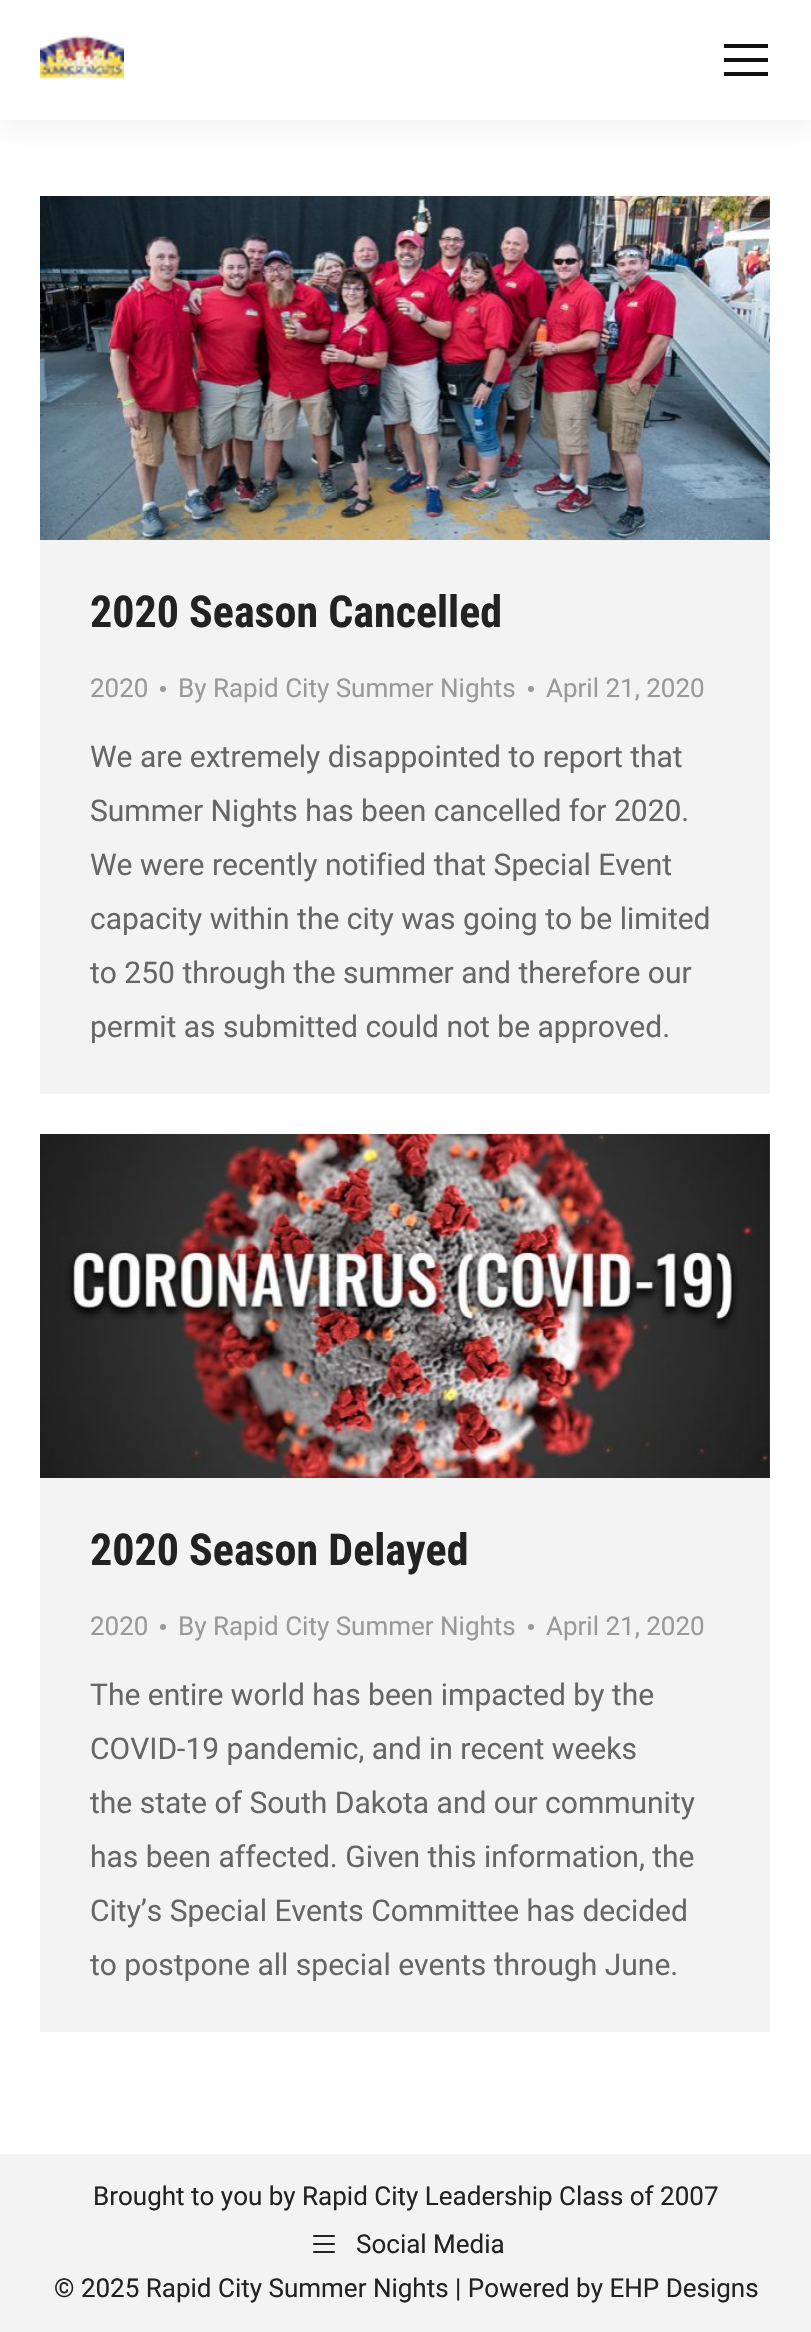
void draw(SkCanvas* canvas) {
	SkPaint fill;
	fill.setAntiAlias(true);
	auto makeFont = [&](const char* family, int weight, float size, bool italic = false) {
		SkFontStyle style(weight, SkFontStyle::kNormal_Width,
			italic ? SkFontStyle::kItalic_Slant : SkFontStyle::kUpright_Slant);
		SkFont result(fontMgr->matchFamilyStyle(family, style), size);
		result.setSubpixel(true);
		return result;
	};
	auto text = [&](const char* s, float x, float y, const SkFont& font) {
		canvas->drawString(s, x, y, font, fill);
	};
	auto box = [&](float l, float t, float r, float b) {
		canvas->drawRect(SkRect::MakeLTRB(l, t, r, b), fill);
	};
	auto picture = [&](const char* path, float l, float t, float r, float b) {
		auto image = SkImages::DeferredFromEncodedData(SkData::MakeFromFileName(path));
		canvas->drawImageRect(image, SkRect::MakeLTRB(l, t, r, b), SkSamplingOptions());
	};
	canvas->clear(0xFFF3F3F3);
	fill.setColor(0xFFFFFFFF);
	box(0, 120, 811, 2154);
	fill.setColor(0x12000000);
	fill.setMaskFilter(SkMaskFilter::MakeBlur(kNormal_SkBlurStyle, 15));
	canvas->drawRect(SkRect::MakeLTRB(-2, -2, 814, 122), fill);
	fill.setMaskFilter(nullptr);
	fill.setColor(0xFFFFFFFF);
	box(0, 0, 811, 120);
	picture("image0.png", 40, 35, 124, 79);
	fill.setColor(0xFF111111);
	box(724, 44, 768, 48);
	box(724, 58, 768, 62);
	box(724, 72, 768, 76);
	fill.setColor(0xFFF3F3F3);
	box(40, 196, 770, 1094);
	picture("image1.png", 40, 196, 770, 540);
	fill.setColor(0xFF999999);
	canvas->drawCircle(163, 689, 3, fill);
	canvas->drawCircle(531, 689, 3, fill);
	fill.setColor(0xFFF3F3F3);
	box(40, 1134, 770, 2032);
	picture("image2.png", 40, 1134, 770, 1478);
	fill.setColor(0xFF999999);
	canvas->drawCircle(163, 1627, 3, fill);
	canvas->drawCircle(531, 1627, 3, fill);
	picture("image3.png", 313, 2235, 335, 2253);
	auto font1 = makeFont("Roboto Condensed", 700, 44);
	fill.setColor(0xFF222222);
	text("2020 Season Cancelled", 90, 627, font1);
	auto font2 = makeFont("Roboto", 400, 26);
	fill.setColor(0xFF999999);
	text("2020", 90, 697, font2);
	text("By Rapid City Summer Nights", 178, 697, font2);
	text("April 21, 2020", 546, 697, font2);
	auto font3 = makeFont("Roboto", 400, 30);
	fill.setColor(0xFF666666);
	text("We are extremely disappointed to report that", 90, 767, font3);
	text("Summer Nights has been cancelled for 2020.", 90, 821, font3);
	text("We were recently notified that Special Event", 90, 875, font3);
	text("capacity within the city was going to be limited", 90, 929, font3);
	text("to 250 through the summer and therefore our", 90, 983, font3);
	text("permit as submitted could not be approved.", 90, 1037, font3);
	fill.setColor(0xFF222222);
	text("2020 Season Delayed", 90, 1565, font1);
	fill.setColor(0xFF999999);
	text("2020", 90, 1635, font2);
	text("By Rapid City Summer Nights", 178, 1635, font2);
	text("April 21, 2020", 546, 1635, font2);
	fill.setColor(0xFF666666);
	text("The entire world has been impacted by the", 90, 1705, font3);
	text("COVID-19 pandemic, and in recent weeks", 90, 1759, font3);
	text("the state of South Dakota and our community", 90, 1813, font3);
	text("has been affected. Given this information, the", 90, 1867, font3);
	text("City’s Special Events Committee has decided", 90, 1921, font3);
	text("to postpone all special events through June.", 90, 1975, font3);
	fill.setColor(0xFF222222);
	text("Brought to you by Rapid City Leadership Class of 2007", 93, 2205, font2);
	text("Social Media", 356, 2253, font2);
	text("© 2025 Rapid City Summer Nights | Powered by EHP Designs", 54, 2297, font2);
}
